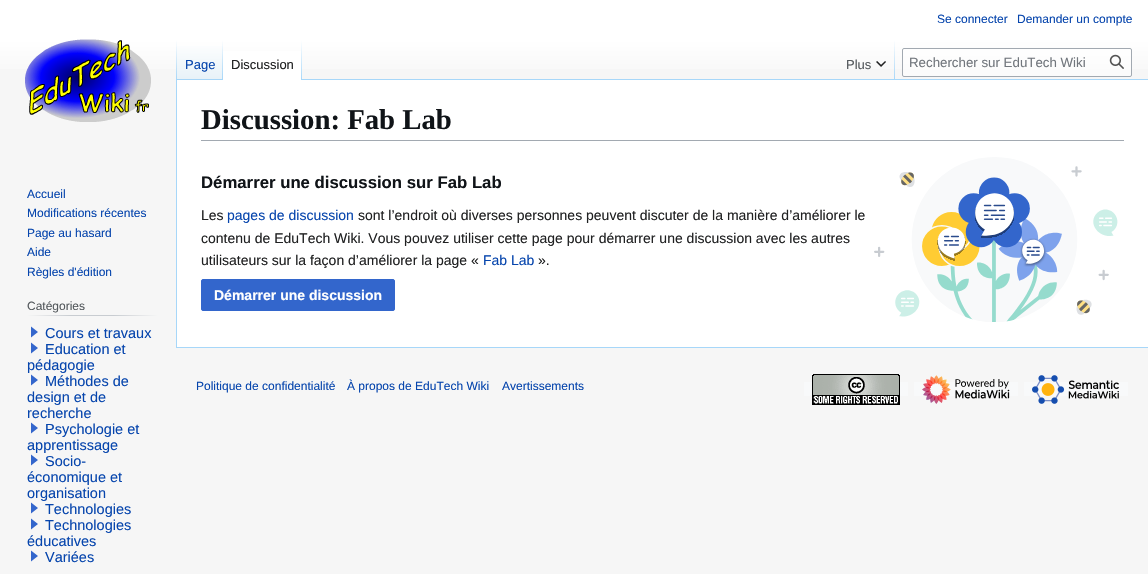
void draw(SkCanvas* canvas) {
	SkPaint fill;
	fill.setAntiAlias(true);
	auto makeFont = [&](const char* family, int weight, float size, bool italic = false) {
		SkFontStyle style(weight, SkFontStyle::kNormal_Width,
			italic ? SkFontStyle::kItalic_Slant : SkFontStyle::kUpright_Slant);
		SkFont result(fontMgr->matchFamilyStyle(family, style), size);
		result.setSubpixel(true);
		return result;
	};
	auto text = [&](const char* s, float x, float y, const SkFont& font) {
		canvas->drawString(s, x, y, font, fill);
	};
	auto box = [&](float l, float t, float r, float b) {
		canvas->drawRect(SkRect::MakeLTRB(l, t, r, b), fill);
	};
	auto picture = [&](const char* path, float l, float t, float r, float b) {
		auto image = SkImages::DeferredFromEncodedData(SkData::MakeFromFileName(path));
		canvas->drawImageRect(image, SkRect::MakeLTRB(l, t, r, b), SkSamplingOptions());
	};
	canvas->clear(0xFFF6F6F6);
	{
		const SkColor colors[] = {0xFFFFFFFF, 0xFFF6F6F6};
		const float stops[] = {0.5f, 1};
		const SkPoint ends[] = {{574, 0}, {574, 80}};
		fill.setShader(SkGradientShader::MakeLinear(ends, colors, stops, 2, SkTileMode::kClamp));
		fill.setAlpha(255);
	}
	box(0, 0, 1148, 69);
	fill.setShader(nullptr);
	fill.setColor(0xFFA7D7F9);
	box(176, 347, 1148, 348);
	box(176, 79, 177, 348);
	{
		const SkColor colors[] = {0x00A7D7F9, 0xFFA7D7F9};
		const float stops[] = {0, 1};
		const SkPoint ends[] = {{177, 40}, {177, 80}};
		fill.setShader(SkGradientShader::MakeLinear(ends, colors, stops, 2, SkTileMode::kClamp));
		fill.setAlpha(255);
	}
	box(176, 40, 177, 80);
	{
		const SkColor colors[] = {0xFF77C1F6, 0xFFE8F2F8, 0xFFFFFFFF};
		const float stops[] = {0, 0.03f, 1};
		const SkPoint ends[] = {{200, 80}, {200, 40}};
		fill.setShader(SkGradientShader::MakeLinear(ends, colors, stops, 3, SkTileMode::kClamp));
		fill.setAlpha(255);
	}
	box(177, 46, 223, 80);
	{
		const SkColor colors[] = {0x00A7D7F9, 0xFFA7D7F9};
		const float stops[] = {0, 1};
		const SkPoint ends[] = {{223, 40}, {223, 80}};
		fill.setShader(SkGradientShader::MakeLinear(ends, colors, stops, 2, SkTileMode::kClamp));
		fill.setAlpha(255);
	}
	box(222, 40, 223, 80);
	fill.setShader(nullptr);
	fill.setColor(0xFFFFFFFF);
	box(223, 51, 301, 80);
	{
		const SkColor colors[] = {0xFFFFFFFF, 0xFFA7D7F9};
		const float stops[] = {0, 1};
		const SkPoint ends[] = {{302, 40}, {302, 80}};
		fill.setShader(SkGradientShader::MakeLinear(ends, colors, stops, 2, SkTileMode::kClamp));
		fill.setAlpha(255);
	}
	box(301, 40, 302, 80);
	fill.setShader(nullptr);
	fill.setColor(0xFFA7D7F9);
	box(302, 79, 1148, 80);
	{
		const SkColor colors[] = {0x00A7D7F9, 0xFFA7D7F9};
		const float stops[] = {0, 1};
		const SkPoint ends[] = {{895, 40}, {895, 80}};
		fill.setShader(SkGradientShader::MakeLinear(ends, colors, stops, 2, SkTileMode::kClamp));
		fill.setAlpha(255);
	}
	box(894, 40, 895, 80);
	picture("image0.png", 876, 61, 886, 67);
	fill.setShader(nullptr);
	fill.setColor(0x80FFFFFF);
	canvas->drawRoundRect(SkRect::MakeLTRB(902.5f, 48.5f, 1131.5f, 76.5f), 1.5f, 1.5f, fill);
	fill.setStyle(SkPaint::kStroke_Style);
	fill.setStrokeWidth(1);
	fill.setColor(0xFFA2A9B1);
	canvas->drawRoundRect(SkRect::MakeLTRB(902.5f, 48.5f, 1131.5f, 76.5f), 1.5f, 1.5f, fill);
	picture("image1.png", 1109, 54, 1124, 69);
	picture("image2.png", 25, 39, 151, 122);
	fill.setStyle(SkPaint::kFill_Style);
	{
		const SkColor colors[] = {0xFFF6F6F6, 0xFFC8CCD1, 0xFFC8CCD1, 0xFFF6F6F6};
		const float stops[] = {0, 0.33f, 0.66f, 1};
		const SkPoint ends[] = {{27, 316}, {158, 316}};
		fill.setShader(SkGradientShader::MakeLinear(ends, colors, stops, 4, SkTileMode::kClamp));
		fill.setAlpha(255);
	}
	box(27, 315, 158, 316);
	fill.setShader(nullptr);
	fill.setColor(0xFFFFFFFF);
	box(177, 80, 1148, 347);
	fill.setColor(0xFFA2A9B1);
	box(201, 140, 1124, 141);
	fill.setColor(0xFF3366CC);
	canvas->drawRoundRect(SkRect::MakeLTRB(201.5f, 279.5f, 394.5f, 310.5f), 1.5f, 1.5f, fill);
	fill.setStyle(SkPaint::kStroke_Style);
	canvas->drawRoundRect(SkRect::MakeLTRB(201.5f, 279.5f, 394.5f, 310.5f), 1.5f, 1.5f, fill);
	picture("image3.png", 874, 157, 1118, 322);
	fill.setStyle(SkPaint::kFill_Style);
	fill.setColor(0xFFF8F9FA);
	box(804, 382, 908, 396);
	picture("image4.png", 812, 374, 900, 405);
	box(914, 382, 1018, 396);
	picture("image5.png", 922, 375, 1010, 404);
	box(1024, 382, 1128, 396);
	picture("image6.png", 1032, 375, 1119, 404);
	auto font1 = makeFont("Liberation Sans", 400, 12);
	fill.setColor(0xFF0645AD);
	text("Se connecter", 937, 23, font1);
	text("Demander un compte", 1017, 23, font1);
	auto font2 = makeFont("Liberation Sans", 400, 13);
	text("Page", 185, 69, font2);
	fill.setColor(0xFF202122);
	text("Discussion", 231, 69, font2);
	fill.setColor(0xFF54595D);
	text("Plus", 846, 69, font2);
	auto font3 = makeFont("Liberation Sans", 400, 13.3f);
	fill.setColor(0xFF72777D);
	text("Rechercher sur EduTech Wiki", 909, 67, font3);
	fill.setColor(0xFF0645AD);
	text("Accueil", 27, 198, font1);
	text("Modifications récentes", 27, 217, font1);
	text("Page au hasard", 27, 237, font1);
	text("Aide", 27, 256, font1);
	text("Règles d'édition", 27, 276, font1);
	fill.setColor(0xFF54595D);
	text("Catégories", 27, 310, font1);
	auto font4 = makeFont("Liberation Sans", 400, 14.5f);
	fill.setColor(0xFF0645AD);
	text("Cours et travaux", 45, 338, font4);
	text("Education et", 45, 354, font4);
	text("pédagogie", 27, 370, font4);
	fill.setColor(0xFF3366CC);
	canvas->drawPath(SkPathBuilder().moveTo(38, 332).lineTo(31, 337.5f).lineTo(31, 326.5f).close().moveTo(38, 348).lineTo(31, 353.5f).lineTo(31, 342.5f).close().moveTo(38, 380).lineTo(31, 385.5f).lineTo(31, 374.5f).close().detach(), fill);
	fill.setColor(0xFF0645AD);
	text("Méthodes de", 45, 386, font4);
	text("design et de", 27, 402, font4);
	text("recherche", 27, 418, font4);
	text("Psychologie et", 45, 434, font4);
	text("apprentissage", 27, 450, font4);
	fill.setColor(0xFF3366CC);
	canvas->drawPath(SkPathBuilder().moveTo(38, 428).lineTo(31, 433.5f).lineTo(31, 422.5f).close().moveTo(38, 460).lineTo(31, 465.5f).lineTo(31, 454.5f).close().detach(), fill);
	fill.setColor(0xFF0645AD);
	text("Socio-", 45, 466, font4);
	text("économique et", 27, 482, font4);
	text("organisation", 27, 498, font4);
	text("Technologies", 45, 514, font4);
	text("Technologies", 45, 530, font4);
	text("éducatives", 27, 546, font4);
	fill.setColor(0xFF3366CC);
	canvas->drawPath(SkPathBuilder().moveTo(38, 508).lineTo(31, 513.5f).lineTo(31, 502.5f).close().moveTo(38, 524).lineTo(31, 529.5f).lineTo(31, 518.5f).close().moveTo(38, 556).lineTo(31, 561.5f).lineTo(31, 550.5f).close().detach(), fill);
	fill.setColor(0xFF0645AD);
	text("Variées", 45, 562, font4);
	auto font5 = makeFont("Liberation Serif", 700, 28.75f);
	fill.setColor(0xFF101418);
	text("Discussion: Fab Lab", 201, 129, font5);
	auto font6 = makeFont("Liberation Sans", 700, 16.75f);
	text("Démarrer une discussion sur Fab Lab", 201, 188, font6);
	auto font7 = makeFont("Liberation Sans", 400, 14);
	fill.setColor(0xFF202122);
	text("Les", 201, 220, font7);
	fill.setColor(0xFF0645AD);
	text("pages de discussion", 227, 220, font7);
	fill.setColor(0xFF202122);
	text("sont l’endroit où diverses personnes peuvent discuter de la manière d’améliorer le", 358, 220, font7);
	text("contenu de EduTech Wiki. Vous pouvez utiliser cette page pour démarrer une discussion avec les autres", 201, 243, font7);
	text("utilisateurs sur la façon d’améliorer la page «", 201, 265, font7);
	fill.setColor(0xFF0645AD);
	text("Fab Lab", 483, 265, font7);
	fill.setColor(0xFF202122);
	text("».", 538, 265, font7);
	auto font8 = makeFont("Liberation Sans", 700, 14);
	fill.setColor(0xFFFFFFFF);
	text("Démarrer une discussion", 214, 300, font8);
	fill.setColor(0xFF0645AD);
	text("Politique de confidentialité", 196, 390, font1);
	text("À propos de EduTech Wiki", 347, 390, font1);
	text("Avertissements", 502, 390, font1);
}
